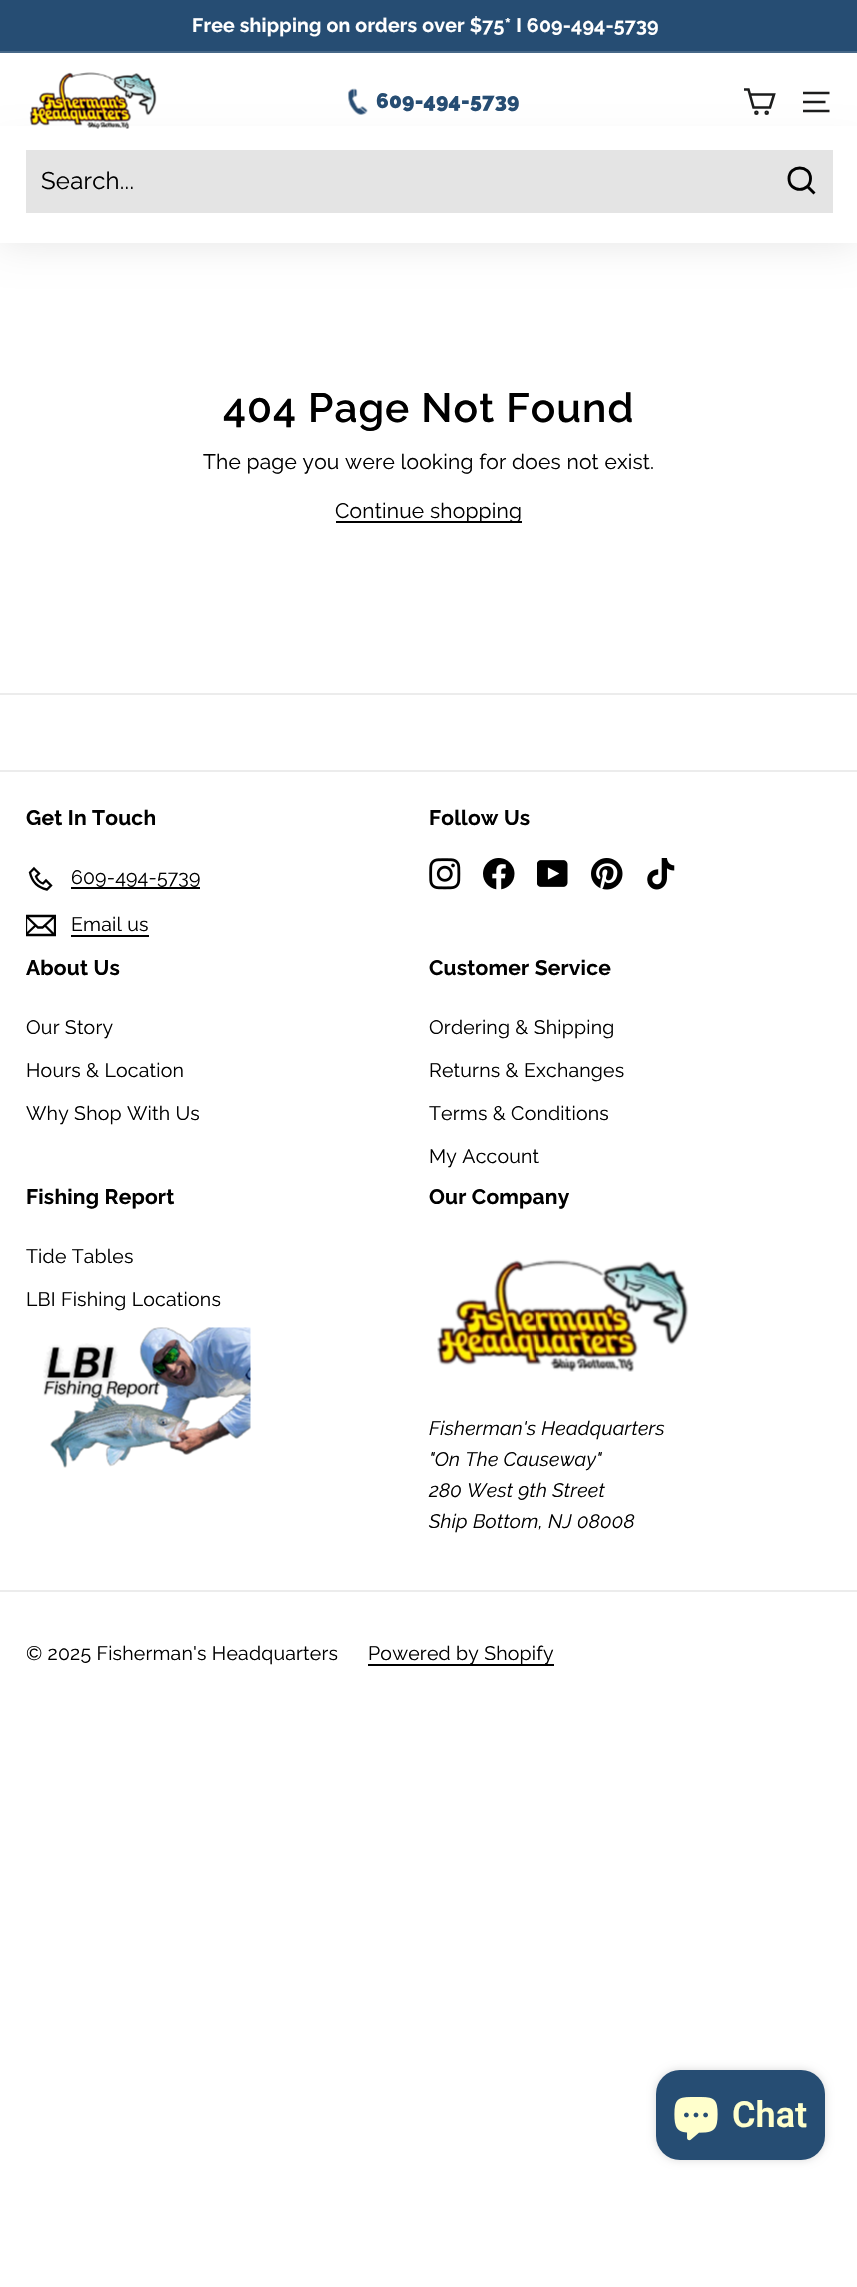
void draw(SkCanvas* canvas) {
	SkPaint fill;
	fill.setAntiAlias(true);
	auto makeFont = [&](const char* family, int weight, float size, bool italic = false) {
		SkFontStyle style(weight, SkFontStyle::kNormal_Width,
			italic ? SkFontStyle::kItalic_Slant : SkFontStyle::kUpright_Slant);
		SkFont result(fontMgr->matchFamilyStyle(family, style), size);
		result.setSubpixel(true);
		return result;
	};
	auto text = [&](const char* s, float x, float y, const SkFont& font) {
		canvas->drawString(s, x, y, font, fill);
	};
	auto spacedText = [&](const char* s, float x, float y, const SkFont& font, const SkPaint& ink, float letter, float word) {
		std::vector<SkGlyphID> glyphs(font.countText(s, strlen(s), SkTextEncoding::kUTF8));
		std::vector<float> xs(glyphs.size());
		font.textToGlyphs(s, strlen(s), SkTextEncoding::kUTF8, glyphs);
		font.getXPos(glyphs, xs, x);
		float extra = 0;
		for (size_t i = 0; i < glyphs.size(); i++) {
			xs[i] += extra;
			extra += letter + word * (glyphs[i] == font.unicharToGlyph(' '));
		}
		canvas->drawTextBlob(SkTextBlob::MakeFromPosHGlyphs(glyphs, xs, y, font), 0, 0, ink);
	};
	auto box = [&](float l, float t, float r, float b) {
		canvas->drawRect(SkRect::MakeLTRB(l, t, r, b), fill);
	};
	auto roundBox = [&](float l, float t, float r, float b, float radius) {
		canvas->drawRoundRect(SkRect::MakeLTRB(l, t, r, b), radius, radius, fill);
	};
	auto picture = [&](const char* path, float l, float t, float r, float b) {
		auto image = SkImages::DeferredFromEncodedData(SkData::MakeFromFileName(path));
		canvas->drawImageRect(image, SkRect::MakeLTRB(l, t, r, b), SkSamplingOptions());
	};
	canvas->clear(0xFFFFFFFF);
	fill.setColor(0xFF264D73);
	box(0, 0, 857, 51);
	fill.setColor(0xFF476888);
	box(0, 51, 857, 53);
	fill.setColor(0x1A000000);
	fill.setMaskFilter(SkMaskFilter::MakeBlur(kNormal_SkBlurStyle, 19));
	canvas->drawRect(SkRect::MakeLTRB(0, 150, 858, 243), fill);
	fill.setMaskFilter(nullptr);
	fill.setColor(0xFFFFFFFF);
	box(0, 126, 857, 243);
	picture("image0.png", 29, 72, 157, 129);
	picture("image1.png", 348, 88, 368, 115);
	fill.setStyle(SkPaint::kStroke_Style);
	fill.setStrokeWidth(2.6f);
	fill.setColor(0xFF1C1D1D);
	canvas->drawPath(SkPathBuilder().moveTo(749.5f, 94.5f).lineTo(774, 94.5f).lineTo(770, 107.5f).lineTo(753.5f, 107.5f).lineTo(748.5f, 89.5f).lineTo(744, 89.5f).detach(), fill);
	canvas->drawCircle(756.4f, 112.8f, 1, fill);
	canvas->drawCircle(766.7f, 112.8f, 1, fill);
	canvas->drawPath(SkPathBuilder().moveTo(803, 93).lineTo(829.5f, 93).moveTo(803, 102).lineTo(825.5f, 102).moveTo(803, 111).lineTo(829.5f, 111).detach(), fill);
	fill.setStyle(SkPaint::kFill_Style);
	fill.setColor(0xFFE4E4E4);
	box(26, 150, 833, 213);
	fill.setStyle(SkPaint::kStroke_Style);
	fill.setStrokeWidth(2.9f);
	fill.setColor(0xFF000000);
	canvas->drawPath(SkPathBuilder().moveTo(810.5f, 178.5f).cubicTo(810.5f, 193, 789, 193, 789, 178.5f).cubicTo(789, 164.5f, 810.5f, 164.5f, 810.5f, 178.5f).close().moveTo(814.5f, 193.5f).lineTo(807.5f, 186.5f).detach(), fill);
	fill.setStyle(SkPaint::kFill_Style);
	box(336, 521, 522, 523);
	fill.setColor(0xFFECECEC);
	box(0, 693, 857, 695);
	box(0, 770, 857, 772);
	fill.setStyle(SkPaint::kStroke_Style);
	fill.setStrokeWidth(2.3f);
	fill.setColor(0xFF000000);
	canvas->drawPath(SkPathBuilder().moveTo(34, 868.5f).lineTo(39, 873.5f).lineTo(36, 876.5f).cubicTo(37, 879.5f, 39, 882, 43, 883.5f).lineTo(46, 880.5f).lineTo(51, 885.5f).lineTo(47, 889.5f).cubicTo(37.5f, 887.5f, 32, 882, 30, 872.5f).close().detach(), fill);
	fill.setStyle(SkPaint::kFill_Style);
	box(71, 887, 200, 889);
	canvas->save();
	canvas->clipRect(SkRect::MakeLTRB(26, 911, 56, 941));
	fill.setStyle(SkPaint::kStroke_Style);
	canvas->drawPath(SkPathBuilder().moveTo(55, 935).lineTo(26, 935).lineTo(26, 916).lineTo(55, 916).close().moveTo(26, 916).lineTo(38, 927.5f).lineTo(42.5f, 927.5f).lineTo(55, 916).moveTo(35.5f, 925.5f).lineTo(26, 934.5f).moveTo(54.5f, 935).lineTo(45, 925.5f).detach(), fill);
	canvas->restore();
	fill.setStyle(SkPaint::kFill_Style);
	box(71, 935, 149, 937);
	picture("image2.png", 429, 858, 461, 890);
	picture("image3.png", 483, 858, 515, 890);
	picture("image4.png", 537, 860, 568, 887);
	picture("image5.png", 591, 858, 623, 890);
	picture("image6.png", 647, 858, 675, 890);
	picture("image7.png", 43, 1327, 251, 1468);
	picture("image8.png", 437, 1259, 689, 1372);
	fill.setColor(0xFFECECEC);
	box(0, 1590, 857, 1592);
	fill.setColor(0xFF000000);
	box(368, 1664, 554, 1666);
	fill.setColor(0x26000000);
	fill.setMaskFilter(SkMaskFilter::MakeBlur(kNormal_SkBlurStyle, 4));
	canvas->drawRoundRect(SkRect::MakeLTRB(656, 2070, 825, 2160), 24, 24, fill);
	fill.setMaskFilter(nullptr);
	fill.setColor(0xFF264D73);
	roundBox(656, 2070, 825, 2160, 24);
	picture("image9.png", 674, 2097, 718, 2141);
	auto font1 = makeFont("Raleway", 700, 19.5f);
	fill.setColor(0xFFFFFFFF);
	spacedText("Free shipping on orders over $75* I 609-494-5739", 192, 32, font1, fill, 0.2f, 0);
	auto font2 = makeFont("Raleway", 900, 21);
	fill.setColor(0xFF264D73);
	spacedText("609-494-5739", 376, 108, font2, fill, 0.2f, 0);
	auto font3 = makeFont("Raleway", 400, 24);
	fill.setColor(0xFF000000);
	spacedText("Search...", 41, 189, font3, fill, 0.25f, 0);
	auto font4 = makeFont("Raleway", 600, 40.75f);
	spacedText("404 Page Not Found", 223, 422, font4, fill, 1, 0);
	auto font5 = makeFont("Raleway", 400, 21);
	spacedText("The page you were looking for does not exist.", 203, 469, font5, fill, 0.2f, 0);
	spacedText("Continue shopping", 335, 518, font5, fill, 0.2f, 0);
	auto font6 = makeFont("Raleway", 700, 21);
	spacedText("Get In Touch", 26, 825, font6, fill, 0.2f, 0);
	auto font7 = makeFont("Raleway", 400, 19.5f);
	spacedText("609-494-5739", 71, 884, font7, fill, 0.2f, 0);
	spacedText("Email us", 71, 931, font7, fill, 0.2f, 0);
	spacedText("Follow Us", 429, 825, font6, fill, 0.2f, 0);
	spacedText("About Us", 26, 975, font6, fill, 0.2f, 0);
	spacedText("Our Story", 26, 1034, font7, fill, 0.2f, 0);
	spacedText("Hours & Location", 26, 1077, font7, fill, 0.2f, 0);
	spacedText("Why Shop With Us", 26, 1120, font7, fill, 0.2f, 0);
	spacedText("Customer Service", 429, 975, font6, fill, 0.2f, 0);
	spacedText("Ordering & Shipping", 429, 1034, font7, fill, 0.2f, 0);
	spacedText("Returns & Exchanges", 429, 1077, font7, fill, 0.2f, 0);
	spacedText("Terms & Conditions", 429, 1120, font7, fill, 0.2f, 0);
	spacedText("My Account", 429, 1163, font7, fill, 0.2f, 0);
	spacedText("Fishing Report", 26, 1204, font6, fill, 0.2f, 0);
	spacedText("Tide Tables", 26, 1263, font7, fill, 0.2f, 0);
	spacedText("LBI Fishing Locations", 26, 1306, font7, fill, 0.2f, 0);
	spacedText("Our Company", 429, 1204, font6, fill, 0.2f, 0);
	auto font8 = makeFont("Raleway", 400, 19.5f, true);
	spacedText("Fisherman's Headquarters", 429, 1435, font8, fill, 0.2f, 0);
	spacedText("\"On The Causeway\"", 429, 1466, font8, fill, 0.2f, 0);
	spacedText("280 West 9th Street", 429, 1497, font8, fill, 0.2f, 0);
	spacedText("Ship Bottom, NJ 08008", 429, 1528, font8, fill, 0.2f, 0);
	spacedText("© 2025 Fisherman's Headquarters", 26, 1660, font7, fill, 0.2f, 0);
	spacedText("Powered by Shopify", 368, 1660, font7, fill, 0.2f, 0);
	auto font9 = makeFont("Roboto", 600, 36);
	fill.setColor(0xFFFFFFCC);
	text("Chat", 732, 2127, font9);
}
